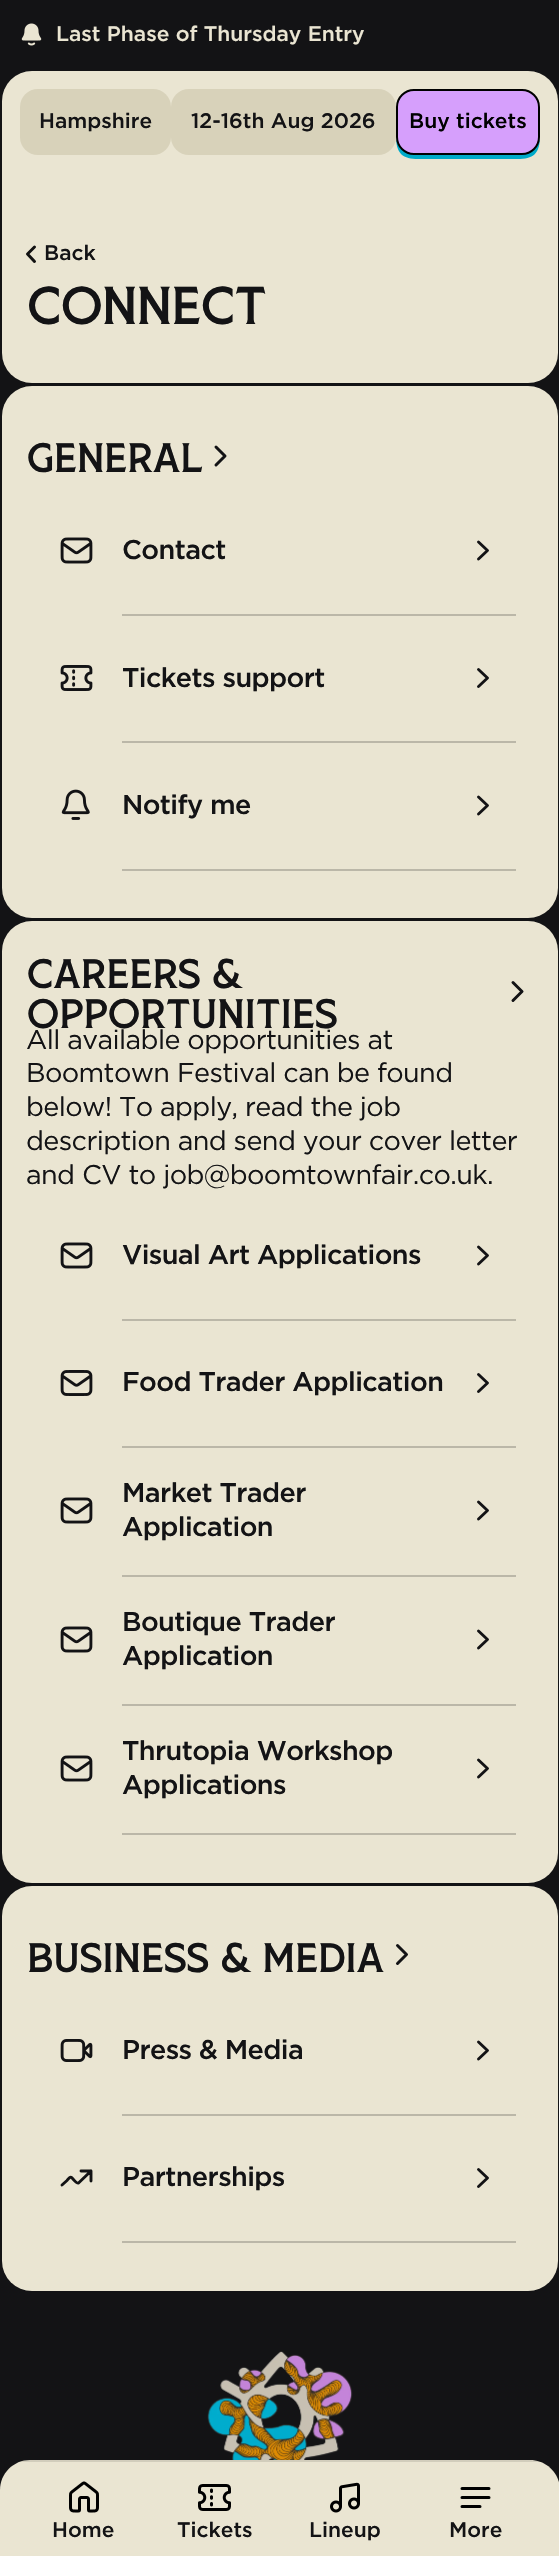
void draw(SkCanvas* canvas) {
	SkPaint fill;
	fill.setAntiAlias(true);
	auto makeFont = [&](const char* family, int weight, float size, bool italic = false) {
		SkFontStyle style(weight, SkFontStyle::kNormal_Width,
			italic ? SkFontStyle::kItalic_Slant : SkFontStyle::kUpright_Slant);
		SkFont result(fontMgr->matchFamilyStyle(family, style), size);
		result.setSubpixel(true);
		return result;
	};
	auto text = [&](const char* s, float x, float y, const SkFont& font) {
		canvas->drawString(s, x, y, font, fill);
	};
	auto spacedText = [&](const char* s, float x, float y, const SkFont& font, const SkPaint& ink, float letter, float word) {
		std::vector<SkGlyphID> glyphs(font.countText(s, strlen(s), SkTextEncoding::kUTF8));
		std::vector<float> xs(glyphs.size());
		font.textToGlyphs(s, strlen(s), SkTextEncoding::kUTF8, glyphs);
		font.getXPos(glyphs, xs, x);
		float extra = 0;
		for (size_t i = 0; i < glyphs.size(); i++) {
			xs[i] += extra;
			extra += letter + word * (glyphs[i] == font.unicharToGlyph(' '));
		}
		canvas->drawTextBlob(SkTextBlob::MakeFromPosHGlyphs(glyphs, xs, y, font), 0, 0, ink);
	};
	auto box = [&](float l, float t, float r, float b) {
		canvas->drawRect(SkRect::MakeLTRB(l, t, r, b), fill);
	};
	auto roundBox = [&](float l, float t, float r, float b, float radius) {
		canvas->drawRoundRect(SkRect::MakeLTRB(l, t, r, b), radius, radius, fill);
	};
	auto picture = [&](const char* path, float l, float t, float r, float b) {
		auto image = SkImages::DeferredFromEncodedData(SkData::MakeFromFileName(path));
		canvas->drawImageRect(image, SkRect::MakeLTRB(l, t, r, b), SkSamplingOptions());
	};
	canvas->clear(0xFF131315);
	picture("image0.png", 21, 23, 42, 46);
	fill.setColor(0xFFEAE5D2);
	roundBox(2, 71, 558, 383, 30);
	fill.setColor(0xFFD8D2BA);
	roundBox(20, 89, 171, 155, 18);
	roundBox(171, 89, 396, 155, 18);
	fill.setColor(0xFF00AAC9);
	canvas->drawPath(SkPathBuilder().moveTo(396, 136).cubicTo(396, 162, 411, 159, 432, 159).lineTo(504, 159).cubicTo(525, 159, 540, 162, 540, 136).cubicTo(540, 146, 532, 154, 522, 154).lineTo(414, 154).cubicTo(404, 154, 396, 146, 396, 136).close().detach(), fill);
	fill.setColor(0xFFD69FFC);
	canvas->drawRoundRect(SkRect::MakeLTRB(397, 90, 539, 154), 17, 17, fill);
	fill.setStyle(SkPaint::kStroke_Style);
	fill.setStrokeWidth(2);
	fill.setColor(0xFF000000);
	canvas->drawRoundRect(SkRect::MakeLTRB(397, 90, 539, 154), 17, 17, fill);
	fill.setStrokeWidth(3);
	fill.setStrokeCap(SkPaint::kRound_Cap);
	fill.setStrokeJoin(SkPaint::kRound_Join);
	fill.setColor(0xFF111111);
	canvas->drawPath(SkPathBuilder().moveTo(34.5f, 261.5f).lineTo(27.5f, 254).lineTo(34.5f, 247).detach(), fill);
	fill.setStyle(SkPaint::kFill_Style);
	fill.setColor(0xFFEAE5D2);
	roundBox(2, 386, 558, 918, 30);
	fill.setStyle(SkPaint::kStroke_Style);
	fill.setColor(0xFF131315);
	canvas->drawPath(SkPathBuilder().moveTo(216, 465).lineTo(225, 456).lineTo(216, 447).detach(), fill);
	picture("image1.png", 60, 537, 93, 564);
	fill.setStyle(SkPaint::kFill_Style);
	fill.setColor(0xFFBBB7A8);
	box(122, 614, 516, 616);
	fill.setStyle(SkPaint::kStroke_Style);
	fill.setStrokeWidth(2.9f);
	fill.setColor(0xFF131315);
	canvas->drawPath(SkPathBuilder().moveTo(478.5f, 559).lineTo(487.5f, 550.5f).lineTo(478.5f, 542).detach(), fill);
	picture("image2.png", 60, 665, 93, 691);
	fill.setStyle(SkPaint::kFill_Style);
	fill.setColor(0xFFBBB7A8);
	box(122, 741, 516, 743);
	fill.setStyle(SkPaint::kStroke_Style);
	fill.setColor(0xFF131315);
	canvas->drawPath(SkPathBuilder().moveTo(478.5f, 686.5f).lineTo(487.5f, 678).lineTo(478.5f, 669.5f).detach(), fill);
	picture("image3.png", 61, 789, 90, 820);
	fill.setStyle(SkPaint::kFill_Style);
	fill.setColor(0xFFBBB7A8);
	box(122, 869, 516, 871);
	fill.setStyle(SkPaint::kStroke_Style);
	fill.setColor(0xFF131315);
	canvas->drawPath(SkPathBuilder().moveTo(478.5f, 814).lineTo(487.5f, 805.5f).lineTo(478.5f, 797).detach(), fill);
	fill.setStyle(SkPaint::kFill_Style);
	fill.setColor(0xFFEAE5D2);
	roundBox(2, 921, 558, 1883, 30);
	fill.setStyle(SkPaint::kStroke_Style);
	fill.setStrokeWidth(3);
	fill.setColor(0xFF131315);
	canvas->drawPath(SkPathBuilder().moveTo(513, 1000.5f).lineTo(522, 991.5f).lineTo(513, 982.5f).detach(), fill);
	picture("image1.png", 60, 1242, 93, 1269);
	fill.setStyle(SkPaint::kFill_Style);
	fill.setColor(0xFFBBB7A8);
	box(122, 1319, 516, 1321);
	fill.setStyle(SkPaint::kStroke_Style);
	fill.setStrokeWidth(2.9f);
	fill.setColor(0xFF131315);
	canvas->drawPath(SkPathBuilder().moveTo(478.5f, 1264).lineTo(487.5f, 1255.5f).lineTo(478.5f, 1247).detach(), fill);
	picture("image4.png", 60, 1370, 93, 1396);
	fill.setStyle(SkPaint::kFill_Style);
	fill.setColor(0xFFBBB7A8);
	box(122, 1446, 516, 1448);
	fill.setStyle(SkPaint::kStroke_Style);
	fill.setColor(0xFF131315);
	canvas->drawPath(SkPathBuilder().moveTo(478.5f, 1391.5f).lineTo(487.5f, 1383).lineTo(478.5f, 1374.5f).detach(), fill);
	picture("image1.png", 60, 1497, 93, 1524);
	fill.setStyle(SkPaint::kFill_Style);
	fill.setColor(0xFFBBB7A8);
	box(122, 1575, 516, 1577);
	fill.setStyle(SkPaint::kStroke_Style);
	fill.setColor(0xFF131315);
	canvas->drawPath(SkPathBuilder().moveTo(478.5f, 1519).lineTo(487.5f, 1510.5f).lineTo(478.5f, 1502).detach(), fill);
	picture("image1.png", 60, 1626, 93, 1653);
	fill.setStyle(SkPaint::kFill_Style);
	fill.setColor(0xFFBBB7A8);
	box(122, 1704, 516, 1706);
	fill.setStyle(SkPaint::kStroke_Style);
	fill.setColor(0xFF131315);
	canvas->drawPath(SkPathBuilder().moveTo(478.5f, 1648).lineTo(487.5f, 1639.5f).lineTo(478.5f, 1631).detach(), fill);
	picture("image1.png", 60, 1755, 93, 1782);
	fill.setStyle(SkPaint::kFill_Style);
	fill.setColor(0xFFBBB7A8);
	box(122, 1833, 516, 1835);
	fill.setStyle(SkPaint::kStroke_Style);
	fill.setColor(0xFF131315);
	canvas->drawPath(SkPathBuilder().moveTo(478.5f, 1777).lineTo(487.5f, 1768.5f).lineTo(478.5f, 1760).detach(), fill);
	fill.setStyle(SkPaint::kFill_Style);
	fill.setColor(0xFFEAE5D2);
	roundBox(2, 1886, 558, 2291, 30);
	fill.setStyle(SkPaint::kStroke_Style);
	fill.setStrokeWidth(3);
	fill.setColor(0xFF131315);
	canvas->drawPath(SkPathBuilder().moveTo(397.5f, 1963.5f).lineTo(406.5f, 1954.5f).lineTo(397.5f, 1945.5f).detach(), fill);
	picture("image5.png", 60, 2039, 93, 2062);
	fill.setStyle(SkPaint::kFill_Style);
	fill.setColor(0xFFBBB7A8);
	box(122, 2114, 516, 2116);
	fill.setStyle(SkPaint::kStroke_Style);
	fill.setStrokeWidth(2.9f);
	fill.setColor(0xFF131315);
	canvas->drawPath(SkPathBuilder().moveTo(478.5f, 2059).lineTo(487.5f, 2050.5f).lineTo(478.5f, 2042).detach(), fill);
	canvas->drawPath(SkPathBuilder().moveTo(91, 2171).lineTo(78.5f, 2183).cubicTo(76.5f, 2184, 73, 2178.5f, 71.5f, 2177.5f).cubicTo(70, 2176, 67.5f, 2180, 67, 2180.5f).lineTo(62, 2185).moveTo(91, 2171).lineTo(81, 2171).moveTo(91, 2171).lineTo(91, 2181).detach(), fill);
	fill.setStyle(SkPaint::kFill_Style);
	fill.setColor(0xFFBBB7A8);
	box(122, 2241, 516, 2243);
	fill.setStyle(SkPaint::kStroke_Style);
	fill.setColor(0xFF131315);
	canvas->drawPath(SkPathBuilder().moveTo(478.5f, 2186.5f).lineTo(487.5f, 2178).lineTo(478.5f, 2169.5f).detach(), fill);
	picture("image6.png", 207, 2351, 353, 2460);
	fill.setStyle(SkPaint::kFill_Style);
	fill.setColor(0xFFEAE5D2);
	canvas->drawPath(SkPathBuilder().moveTo(30, 2460).lineTo(530, 2460).cubicTo(546.5f, 2460, 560, 2473.5f, 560, 2490).lineTo(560, 2556).lineTo(0, 2556).lineTo(0, 2490).cubicTo(0, 2473.5f, 13.5f, 2460, 30, 2460).close().detach(), fill);
	fill.setColor(0x1A000000);
	box(18, 2460, 542, 2462);
	picture("image7.png", 69, 2481, 99, 2513);
	picture("image8.png", 198, 2484, 231, 2511);
	picture("image9.png", 330, 2482, 360, 2513);
	fill.setStyle(SkPaint::kStroke_Style);
	fill.setStrokeWidth(3);
	fill.setColor(0xFF000000);
	canvas->drawPath(SkPathBuilder().moveTo(462, 2497.5f).lineTo(489, 2497.5f).moveTo(462, 2488.5f).lineTo(489, 2488.5f).moveTo(462, 2506.5f).lineTo(480, 2506.5f).detach(), fill);
	auto font1 = makeFont("Gotham", 500, 21);
	fill.setStyle(SkPaint::kFill_Style);
	fill.setColor(0xFFEAE5D2);
	text("Last Phase of Thursday Entry", 56, 41, font1);
	fill.setColor(0xFF131315);
	text("Hampshire", 39, 128, font1);
	text("12-16th Aug 2026", 191, 128, font1);
	fill.setColor(0xFF000000);
	text("Buy tickets", 409, 128, font1);
	fill.setColor(0xFF131315);
	text("Back", 44, 260, font1);
	auto font2 = makeFont("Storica", 600, 46.5f);
	spacedText("CONNECT", 26, 324, font2, fill, -2.75f, 0);
	auto font3 = makeFont("Storica", 600, 36);
	spacedText("GENERAL", 26, 472, font3, fill, -1.75f, 0);
	auto font4 = makeFont("Gotham", 500, 27);
	spacedText("Contact", 122, 559, font4, fill, -0.6f, 0);
	spacedText("Tickets support", 122, 687, font4, fill, -0.6f, 0);
	spacedText("Notify me", 122, 814, font4, fill, -0.6f, 0);
	spacedText("CAREERS &", 26, 988, font3, fill, -1.75f, 0);
	spacedText("OPPORTUNITIES", 26, 1028, font3, fill, -1.75f, 0);
	auto font5 = makeFont("Gotham", 400, 27);
	spacedText("All available opportunities at", 26, 1049, font5, fill, -0.6f, 0);
	spacedText("Boomtown Festival can be found", 26, 1082, font5, fill, -0.6f, 0);
	spacedText("below! To apply, read the job", 26, 1116, font5, fill, -0.6f, 0);
	spacedText("description and send your cover letter", 26, 1150, font5, fill, -0.6f, 0);
	spacedText("and CV to job@boomtownfair.co.uk.", 26, 1184, font5, fill, -0.6f, 0);
	spacedText("Visual Art Applications", 122, 1264, font4, fill, -0.6f, 0);
	spacedText("Food Trader Application", 122, 1391, font4, fill, -0.6f, 0);
	spacedText("Market Trader", 122, 1502, font4, fill, -0.6f, 0);
	spacedText("Application", 122, 1536, font4, fill, -0.6f, 0);
	spacedText("Boutique Trader", 122, 1631, font4, fill, -0.6f, 0);
	spacedText("Application", 122, 1665, font4, fill, -0.6f, 0);
	spacedText("Thrutopia Workshop", 122, 1760, font4, fill, -0.6f, 0);
	spacedText("Applications", 122, 1794, font4, fill, -0.6f, 0);
	spacedText("BUSINESS & MEDIA", 26, 1972, font3, fill, -1.75f, 0);
	spacedText("Press & Media", 122, 2059, font4, fill, -0.6f, 0);
	spacedText("Partnerships", 122, 2186, font4, fill, -0.6f, 0);
	text("Home", 52, 2537, font1);
	text("Tickets", 177, 2537, font1);
	text("Lineup", 309, 2537, font1);
	text("More", 449, 2537, font1);
}
